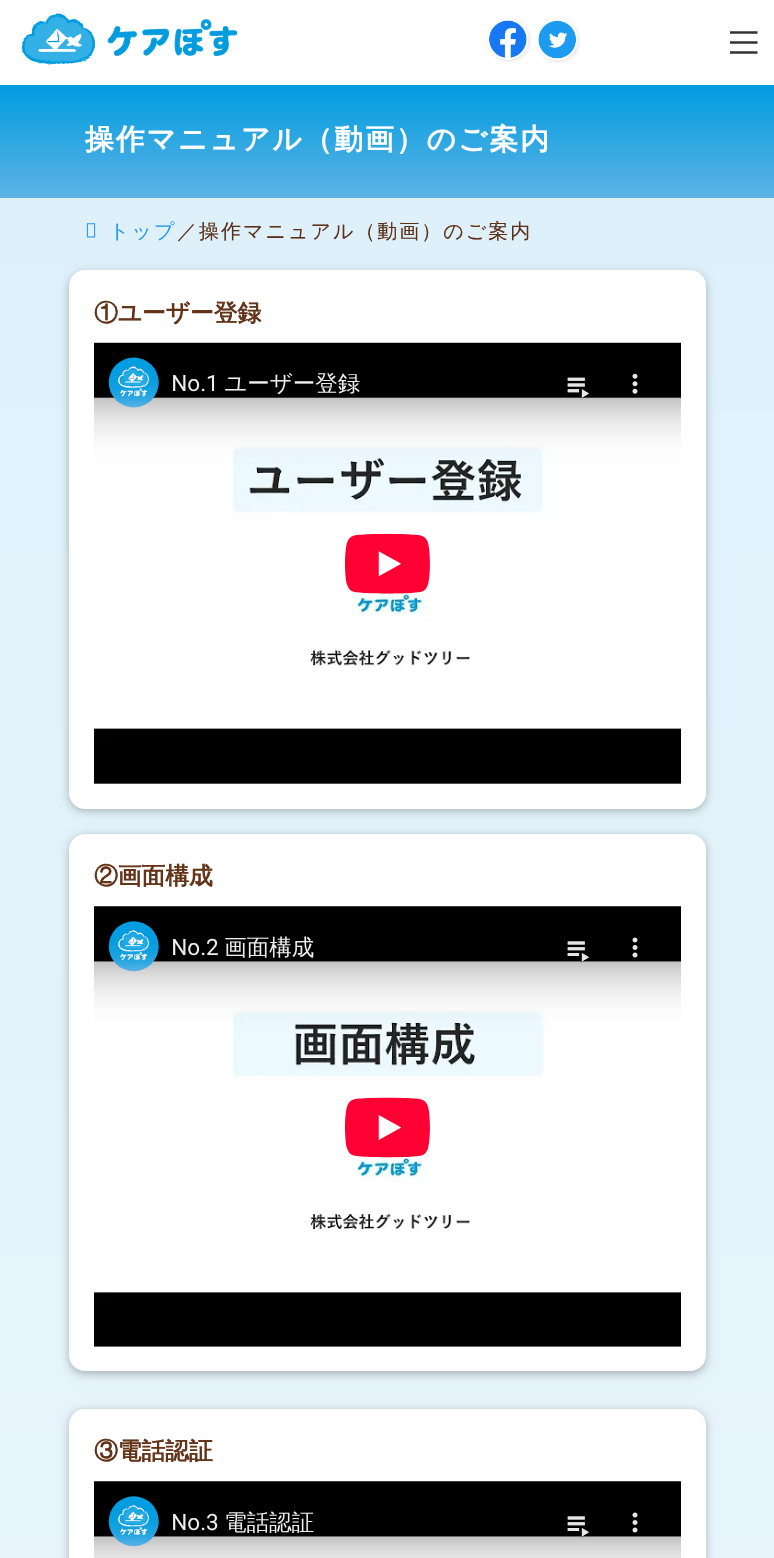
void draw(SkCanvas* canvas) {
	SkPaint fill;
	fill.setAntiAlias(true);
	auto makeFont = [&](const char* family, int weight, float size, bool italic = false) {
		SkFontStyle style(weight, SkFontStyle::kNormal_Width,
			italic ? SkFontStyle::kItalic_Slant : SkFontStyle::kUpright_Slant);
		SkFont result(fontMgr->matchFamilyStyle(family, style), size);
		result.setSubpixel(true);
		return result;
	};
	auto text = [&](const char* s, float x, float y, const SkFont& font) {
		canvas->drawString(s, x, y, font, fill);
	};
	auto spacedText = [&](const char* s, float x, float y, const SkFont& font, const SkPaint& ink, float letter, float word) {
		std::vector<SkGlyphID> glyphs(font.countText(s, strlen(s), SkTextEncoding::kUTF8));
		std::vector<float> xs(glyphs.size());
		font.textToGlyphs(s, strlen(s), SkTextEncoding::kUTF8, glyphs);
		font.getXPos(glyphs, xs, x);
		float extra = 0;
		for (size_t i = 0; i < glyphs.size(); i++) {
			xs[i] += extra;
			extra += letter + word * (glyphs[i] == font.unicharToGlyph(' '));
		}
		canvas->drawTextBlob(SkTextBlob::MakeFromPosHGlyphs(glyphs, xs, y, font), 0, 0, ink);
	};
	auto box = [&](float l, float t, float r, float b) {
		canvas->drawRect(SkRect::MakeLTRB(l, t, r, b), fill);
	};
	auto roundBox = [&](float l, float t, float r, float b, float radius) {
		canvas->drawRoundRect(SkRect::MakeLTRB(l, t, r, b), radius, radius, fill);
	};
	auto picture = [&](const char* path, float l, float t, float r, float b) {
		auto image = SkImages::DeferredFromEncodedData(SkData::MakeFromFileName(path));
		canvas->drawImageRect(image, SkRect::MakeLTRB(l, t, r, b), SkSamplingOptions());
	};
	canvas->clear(0xFFFFFFFF);
	picture("image0.png", 21, 13, 238, 65);
	fill.setStyle(SkPaint::kStroke_Style);
	fill.setStrokeWidth(2.5f);
	fill.setColor(0xFF333333);
	canvas->drawPath(SkPathBuilder().moveTo(730, 32.5f).lineTo(757.5f, 32.5f).moveTo(730, 42.5f).lineTo(757.5f, 42.5f).moveTo(730, 52.5f).lineTo(757.5f, 52.5f).detach(), fill);
	fill.setStyle(SkPaint::kFill_Style);
	{
		const SkColor colors[] = {0xFF009DE0, 0xFF5DB2E4};
		const float stops[] = {0, 1};
		const SkPoint ends[] = {{388, 85}, {388, 198}};
		fill.setShader(SkGradientShader::MakeLinear(ends, colors, stops, 2, SkTileMode::kClamp));
		fill.setAlpha(255);
	}
	box(0, 85, 774, 198);
	picture("image1.png", 487, 18, 531, 63);
	picture("image2.png", 536, 19, 580, 63);
	{
		const SkColor colors[] = {0xFFDEF1FB, 0xFFF7FBFD};
		const float stops[] = {0, 1};
		const SkPoint ends[] = {{388, 198}, {387, 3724}};
		fill.setShader(SkGradientShader::MakeLinear(ends, colors, stops, 2, SkTileMode::kClamp));
		fill.setAlpha(255);
	}
	box(0, 198, 774, 1558);
	picture("image3.png", 86, 223, 96, 238);
	fill.setShader(nullptr);
	fill.setColor(0x1F000000);
	fill.setMaskFilter(SkMaskFilter::MakeBlur(kNormal_SkBlurStyle, 6));
	canvas->drawRoundRect(SkRect::MakeLTRB(69, 273, 706, 811), 16, 16, fill);
	fill.setMaskFilter(nullptr);
	fill.setColor(0x29000000);
	fill.setMaskFilter(SkMaskFilter::MakeBlur(kNormal_SkBlurStyle, 3));
	canvas->drawRoundRect(SkRect::MakeLTRB(69, 273, 706, 811), 16, 16, fill);
	fill.setMaskFilter(nullptr);
	fill.setColor(0xFFFFFFFF);
	roundBox(69, 270, 706, 809, 16);
	picture("image4.png", 94, 342, 681, 784);
	fill.setColor(0x1F000000);
	fill.setMaskFilter(SkMaskFilter::MakeBlur(kNormal_SkBlurStyle, 6));
	canvas->drawRoundRect(SkRect::MakeLTRB(69, 836, 706, 1374), 16, 16, fill);
	fill.setMaskFilter(nullptr);
	fill.setColor(0x29000000);
	fill.setMaskFilter(SkMaskFilter::MakeBlur(kNormal_SkBlurStyle, 3));
	canvas->drawRoundRect(SkRect::MakeLTRB(69, 836, 706, 1374), 16, 16, fill);
	fill.setMaskFilter(nullptr);
	fill.setColor(0xFFFFFFFF);
	roundBox(69, 834, 706, 1371, 16);
	picture("image5.png", 94, 906, 681, 1347);
	fill.setColor(0x1F000000);
	fill.setMaskFilter(SkMaskFilter::MakeBlur(kNormal_SkBlurStyle, 6));
	canvas->drawRoundRect(SkRect::MakeLTRB(69, 1411, 706, 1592), 16, 16, fill);
	fill.setMaskFilter(nullptr);
	fill.setColor(0x29000000);
	fill.setMaskFilter(SkMaskFilter::MakeBlur(kNormal_SkBlurStyle, 3));
	canvas->drawRoundRect(SkRect::MakeLTRB(69, 1411, 706, 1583), 16, 16, fill);
	fill.setMaskFilter(nullptr);
	fill.setColor(0xFFFFFFFF);
	roundBox(69, 1409, 706, 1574, 16);
	picture("image6.png", 94, 1481, 681, 1558);
	auto font1 = makeFont("WenQuanYi Zen Hei", 700, 28.75f);
	spacedText("操作マニュアル（動画）のご案内", 85, 149, font1, fill, 2, 0);
	auto font2 = makeFont("WenQuanYi Zen Hei", 500, 20);
	fill.setColor(0xFF2196F3);
	spacedText("トップ", 109, 238, font2, fill, 2, 0);
	fill.setColor(0xFF5D2F17);
	spacedText("／操作マニュアル（動画）のご案内", 177, 238, font2, fill, 2, 0);
	auto font3 = makeFont("WenQuanYi Zen Hei", 700, 23.75f);
	fill.setColor(0xFF643419);
	text("①ユーザー登録", 94, 321, font3);
	text("②画面構成", 94, 884, font3);
	text("③電話認証", 94, 1459, font3);
}
